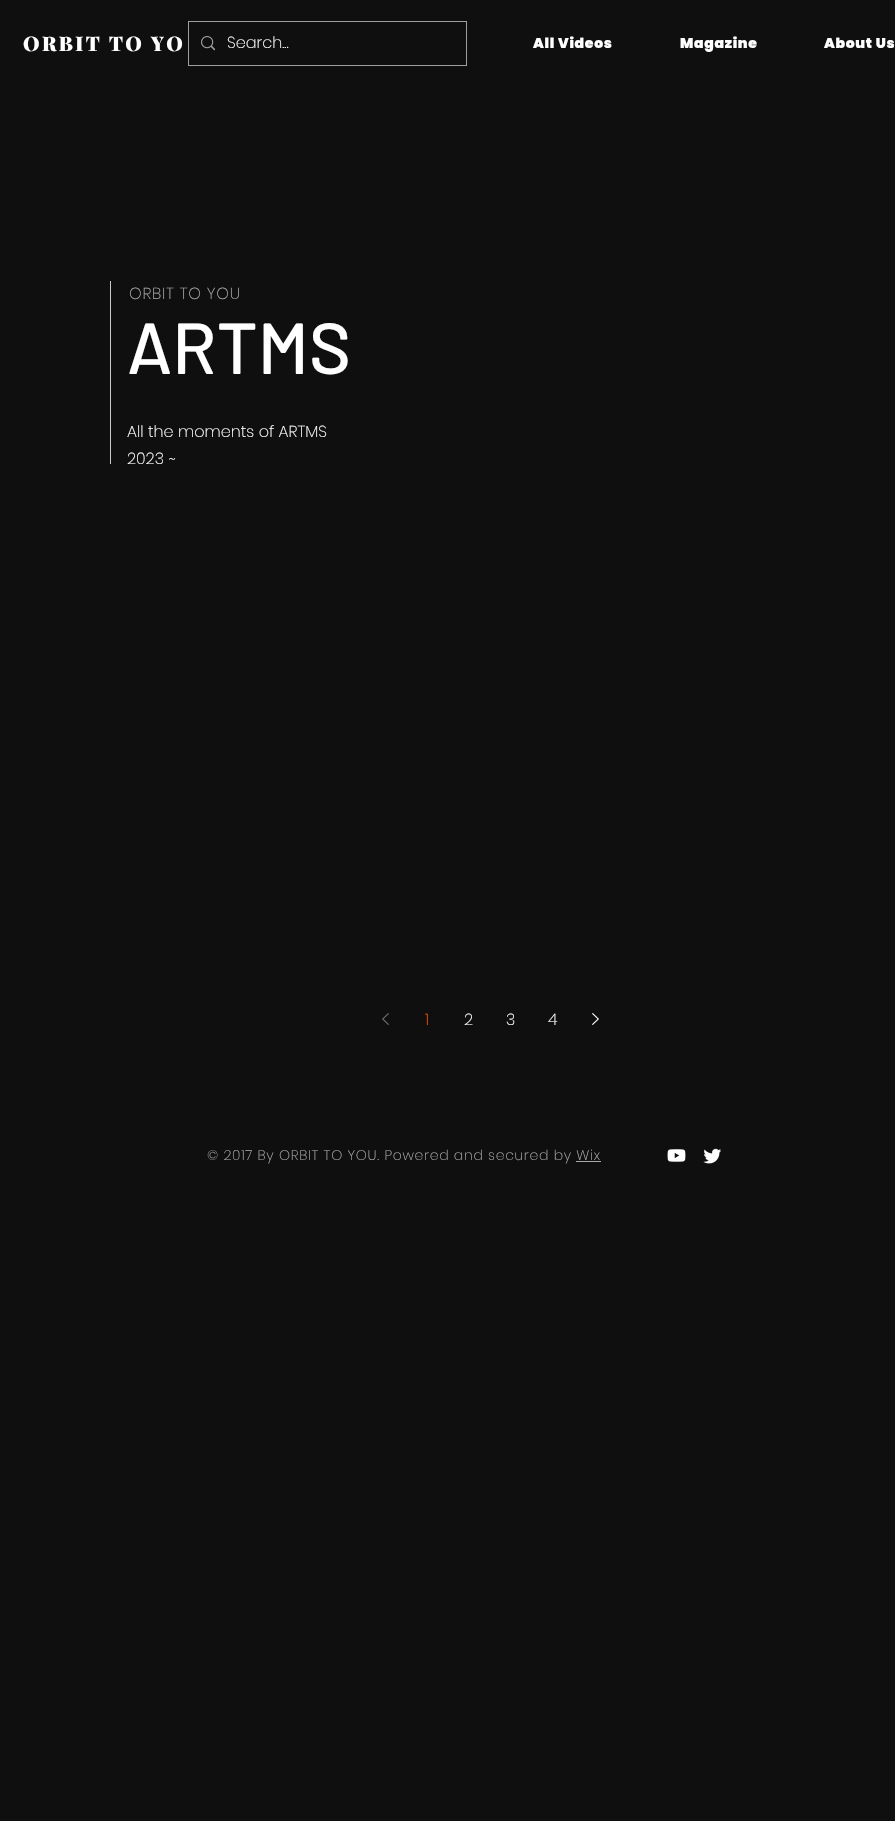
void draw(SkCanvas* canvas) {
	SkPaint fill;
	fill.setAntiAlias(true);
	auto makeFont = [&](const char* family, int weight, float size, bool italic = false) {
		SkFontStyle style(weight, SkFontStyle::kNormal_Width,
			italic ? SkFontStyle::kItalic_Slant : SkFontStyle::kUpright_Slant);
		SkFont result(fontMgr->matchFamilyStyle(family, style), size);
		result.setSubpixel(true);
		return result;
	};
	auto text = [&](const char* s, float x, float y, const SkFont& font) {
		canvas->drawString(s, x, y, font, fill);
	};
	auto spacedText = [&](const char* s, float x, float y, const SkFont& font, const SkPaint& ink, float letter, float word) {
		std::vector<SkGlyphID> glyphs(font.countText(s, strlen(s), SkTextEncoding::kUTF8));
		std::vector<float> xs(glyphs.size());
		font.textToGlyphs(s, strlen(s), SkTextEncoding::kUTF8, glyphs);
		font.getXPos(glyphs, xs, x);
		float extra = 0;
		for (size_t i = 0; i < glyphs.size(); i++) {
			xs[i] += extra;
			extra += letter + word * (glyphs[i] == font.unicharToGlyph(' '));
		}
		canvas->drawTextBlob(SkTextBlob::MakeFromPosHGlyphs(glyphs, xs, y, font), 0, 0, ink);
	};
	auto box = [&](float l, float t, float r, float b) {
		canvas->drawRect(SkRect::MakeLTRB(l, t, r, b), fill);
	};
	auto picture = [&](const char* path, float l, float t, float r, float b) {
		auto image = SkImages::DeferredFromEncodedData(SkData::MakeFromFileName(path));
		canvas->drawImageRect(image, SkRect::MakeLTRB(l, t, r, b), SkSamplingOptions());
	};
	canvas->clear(0xFF0F0F0F);
	fill.setStyle(SkPaint::kStroke_Style);
	fill.setStrokeWidth(1);
	fill.setColor(0x99FFFFFF);
	canvas->drawRect(SkRect::MakeLTRB(188.5f, 21.5f, 466.5f, 65.5f), fill);
	picture("image0.png", 201, 36, 215, 51);
	fill.setStyle(SkPaint::kFill_Style);
	fill.setColor(0xFFCCCACA);
	box(110, 281, 111, 464);
	picture("image1.png", 382, 1013, 389, 1025);
	picture("image2.png", 592, 1013, 599, 1025);
	fill.setColor(0xFFA8A8A8);
	box(576, 1161, 601, 1162);
	picture("image3.png", 667, 1149, 686, 1162);
	picture("image4.png", 703, 1148, 721, 1164);
	auto font1 = makeFont("Playfair Display", 900, 20);
	fill.setColor(0xFFFFFFFF);
	spacedText("ORBIT TO YO", 23, 51, font1, fill, 2.4f, 0);
	auto font2 = makeFont("Poppins", 200, 16);
	text("Search...", 227, 48, font2);
	auto font3 = makeFont("Poppins", 900, 14);
	spacedText("All Videos", 533, 48, font3, fill, 0.7f, 0);
	spacedText("Magazine", 680, 48, font3, fill, 0.7f, 0);
	spacedText("About Us", 824, 48, font3, fill, 0.7f, 0);
	fill.setColor(0xFFA8A8A8);
	spacedText("ORBIT TO YOU", 129, 299, font2, fill, 0.75f, 0);
	auto font4 = makeFont("Barlow", 500, 72);
	fill.setColor(0xFFFFFFFF);
	text("ARTMS", 127, 374, font4);
	text("All the moments of ARTMS", 127, 437, font2);
	text("2023 ~", 127, 464, font2);
	fill.setColor(0xFFFF5900);
	text("1", 425, 1025, font2);
	fill.setColor(0xFFFFFFFF);
	text("2", 464, 1025, font2);
	text("3", 506, 1025, font2);
	text("4", 548, 1025, font2);
	auto font5 = makeFont("Poppins", 200, 14);
	fill.setColor(0xFFA8A8A8);
	spacedText("© 2017 By ORBIT TO YOU. Powered and secured by Wix", 207, 1160, font5, fill, 0.7f, 0);
}
